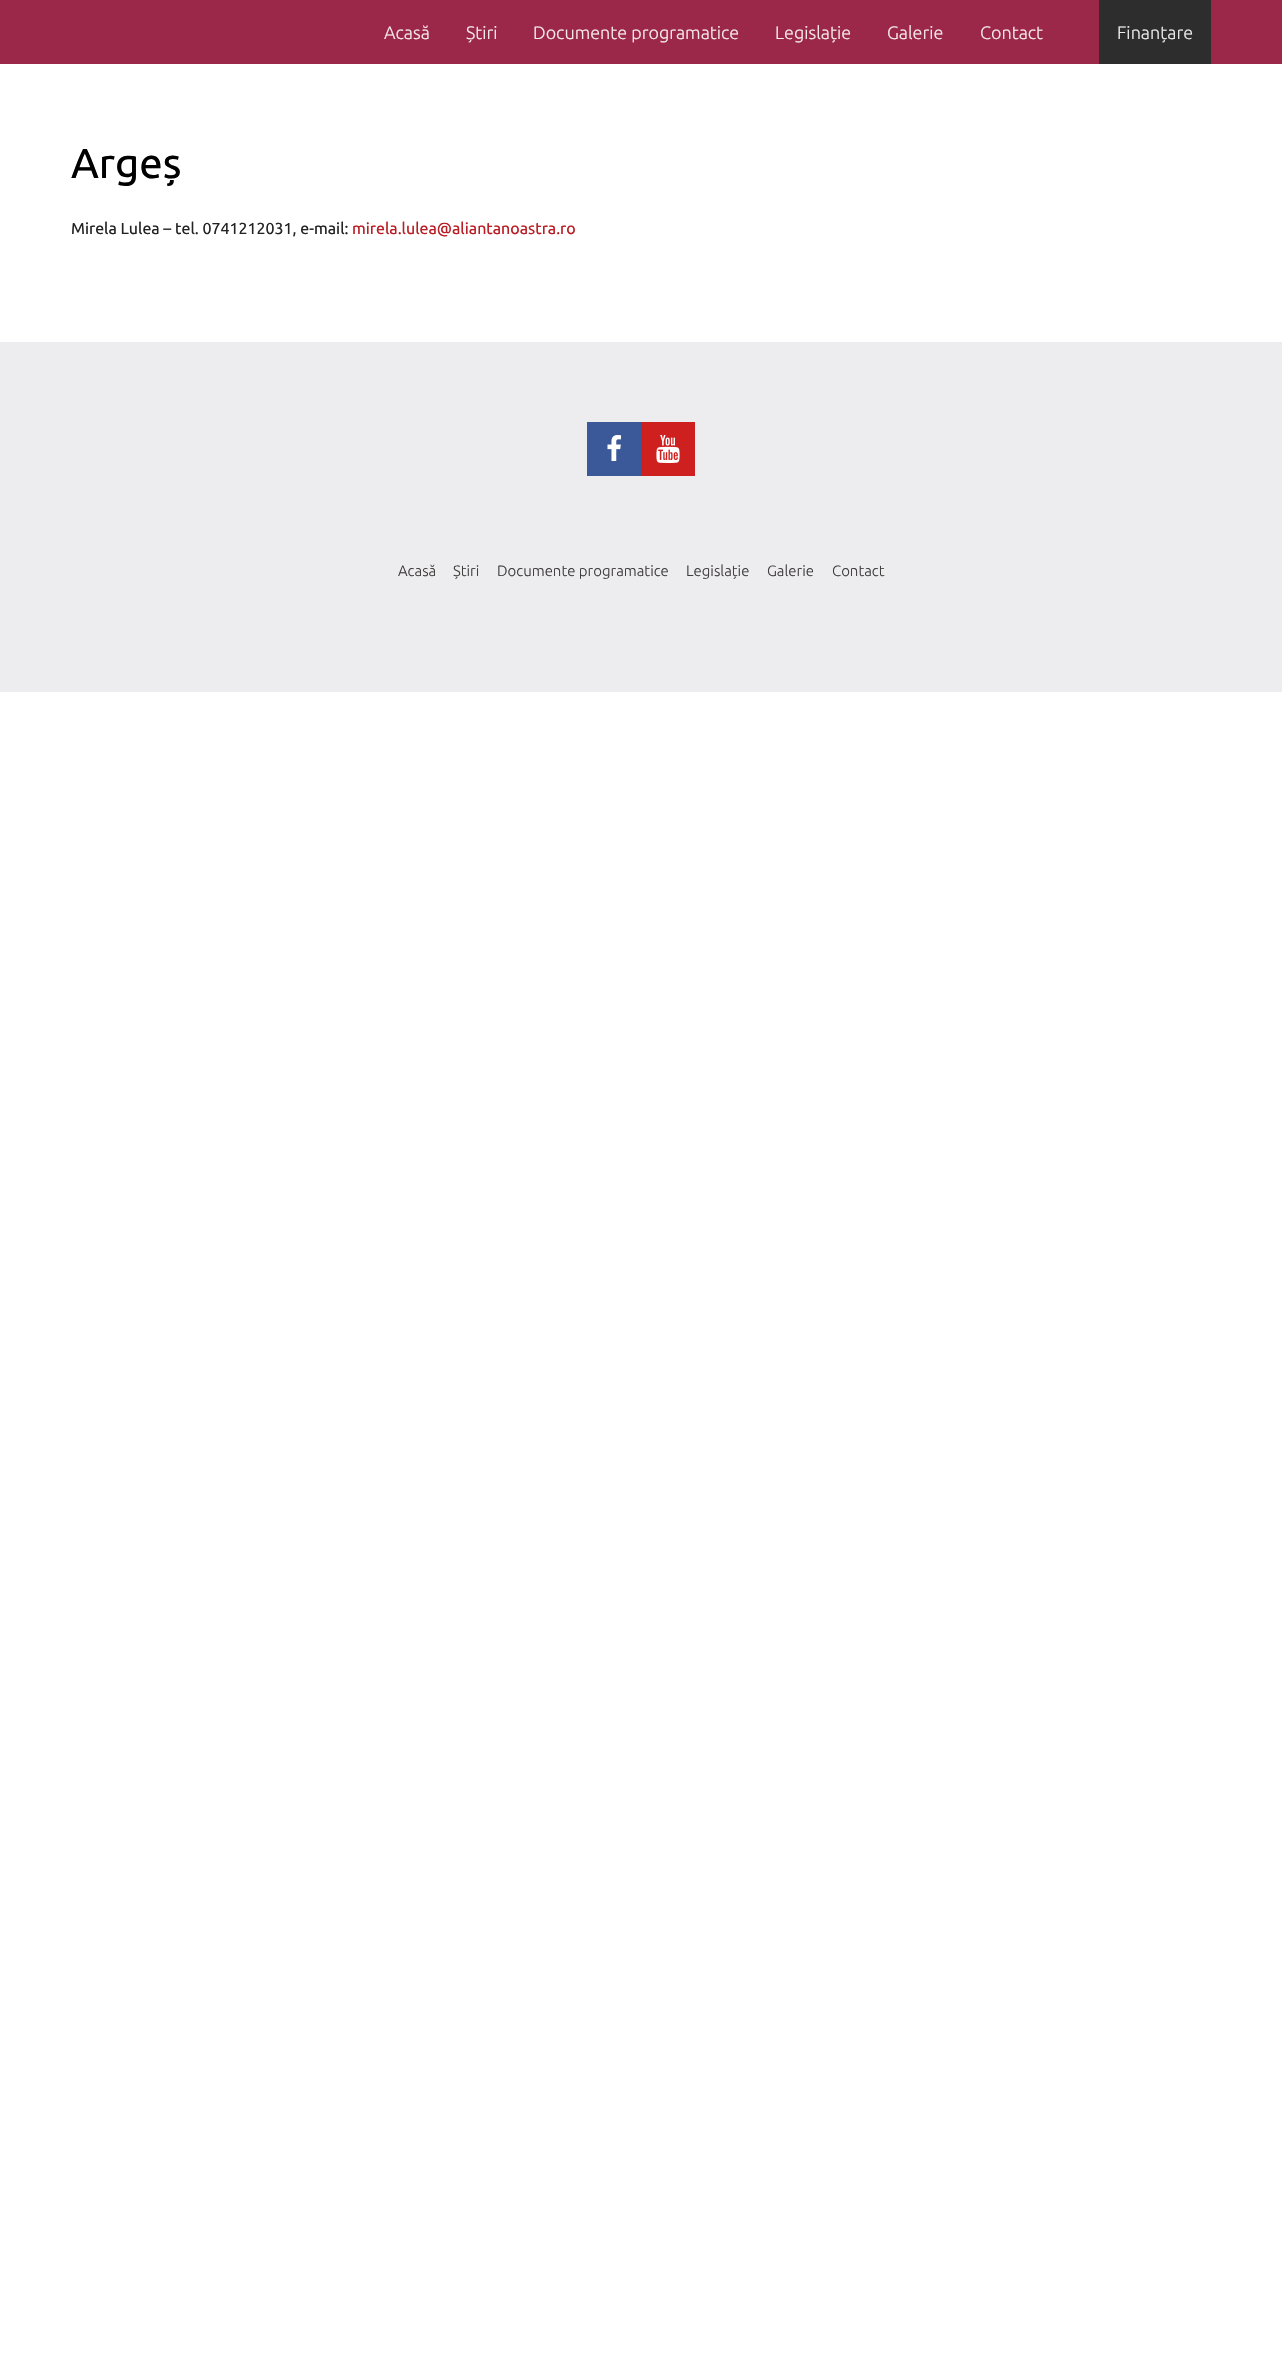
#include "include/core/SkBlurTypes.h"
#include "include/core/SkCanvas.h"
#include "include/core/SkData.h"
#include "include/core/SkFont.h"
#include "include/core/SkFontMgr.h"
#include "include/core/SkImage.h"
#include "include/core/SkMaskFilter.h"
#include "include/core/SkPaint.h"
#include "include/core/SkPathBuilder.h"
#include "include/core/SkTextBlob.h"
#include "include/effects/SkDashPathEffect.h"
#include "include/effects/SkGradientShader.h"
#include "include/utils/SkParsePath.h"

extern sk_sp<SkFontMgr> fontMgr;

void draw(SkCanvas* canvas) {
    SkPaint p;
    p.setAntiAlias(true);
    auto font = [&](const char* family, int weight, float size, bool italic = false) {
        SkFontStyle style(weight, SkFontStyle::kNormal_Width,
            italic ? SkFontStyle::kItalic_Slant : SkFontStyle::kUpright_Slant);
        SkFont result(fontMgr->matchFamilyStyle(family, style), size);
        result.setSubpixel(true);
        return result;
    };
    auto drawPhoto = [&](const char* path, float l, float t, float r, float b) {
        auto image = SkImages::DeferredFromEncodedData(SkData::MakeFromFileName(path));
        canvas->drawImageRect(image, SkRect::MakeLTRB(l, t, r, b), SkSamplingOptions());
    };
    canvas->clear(0xFFFFFFFF);
    p.setColor(0xFF9C2849);
    canvas->drawRect(SkRect::MakeLTRB(0, 0, 1282, 64), p);
    auto font1 = font("Ubuntu", 300, 18);
    p.setColor(0xFFF5EAED);
    {
        const struct { const char* s; float x, y; } items[] = {
            {"Acasă", 384, 39},
            {"Știri", 466, 39},
            {"Documente programatice", 533, 39},
            {"Legislație", 775, 39},
            {"Galerie", 887, 39},
            {"Contact", 980, 39},
        };
        for (auto [s, x, y] : items) {
            canvas->drawString(s, x, y, font1, p);
        }
    }
    p.setColor(0xFF2D2D2D);
    canvas->drawRect(SkRect::MakeLTRB(1099, 0, 1211, 64), p);
    p.setColor(0xFFEAEAEA);
    canvas->drawString("Finanțare", 1117, 39, font1, p);
    auto font2 = font("Ubuntu", 400, 42);
    p.setColor(0xFF000000);
    canvas->drawString("Argeș", 71, 178, font2, p);
    auto font3 = font("Ubuntu", 400, 16);
    p.setColor(0xFF232323);
    canvas->drawString("Mirela Lulea – tel. 0741212031, e-mail:", 71, 234, font3, p);
    p.setColor(0xFFBA1C24);
    canvas->drawString("mirela.lulea@aliantanoastra.ro", 352, 234, font3, p);
    p.setColor(0xFFEDEDEF);
    canvas->drawRect(SkRect::MakeLTRB(0, 342, 1282, 692), p);
    p.setColor(0xFF3B5998);
    canvas->drawRect(SkRect::MakeLTRB(587, 422, 641, 476), p);
    drawPhoto("media/1.png", 607, 435, 621, 461);
    p.setColor(0xFFCD201F);
    canvas->drawRect(SkRect::MakeLTRB(641, 422, 695, 476), p);
    drawPhoto("media/2.png", 656, 435, 680, 463);
    auto font4 = font("Ubuntu", 300, 15);
    p.setColor(0xFF403D3D);
    {
        const struct { const char* s; float x, y; } items[] = {
            {"Acasă", 398, 576},
            {"Știri", 453, 576},
            {"Documente programatice", 497, 576},
            {"Legislație", 686, 576},
            {"Galerie", 767, 576},
            {"Contact", 832, 576},
        };
        for (auto [s, x, y] : items) {
            canvas->drawString(s, x, y, font4, p);
        }
    }
}
